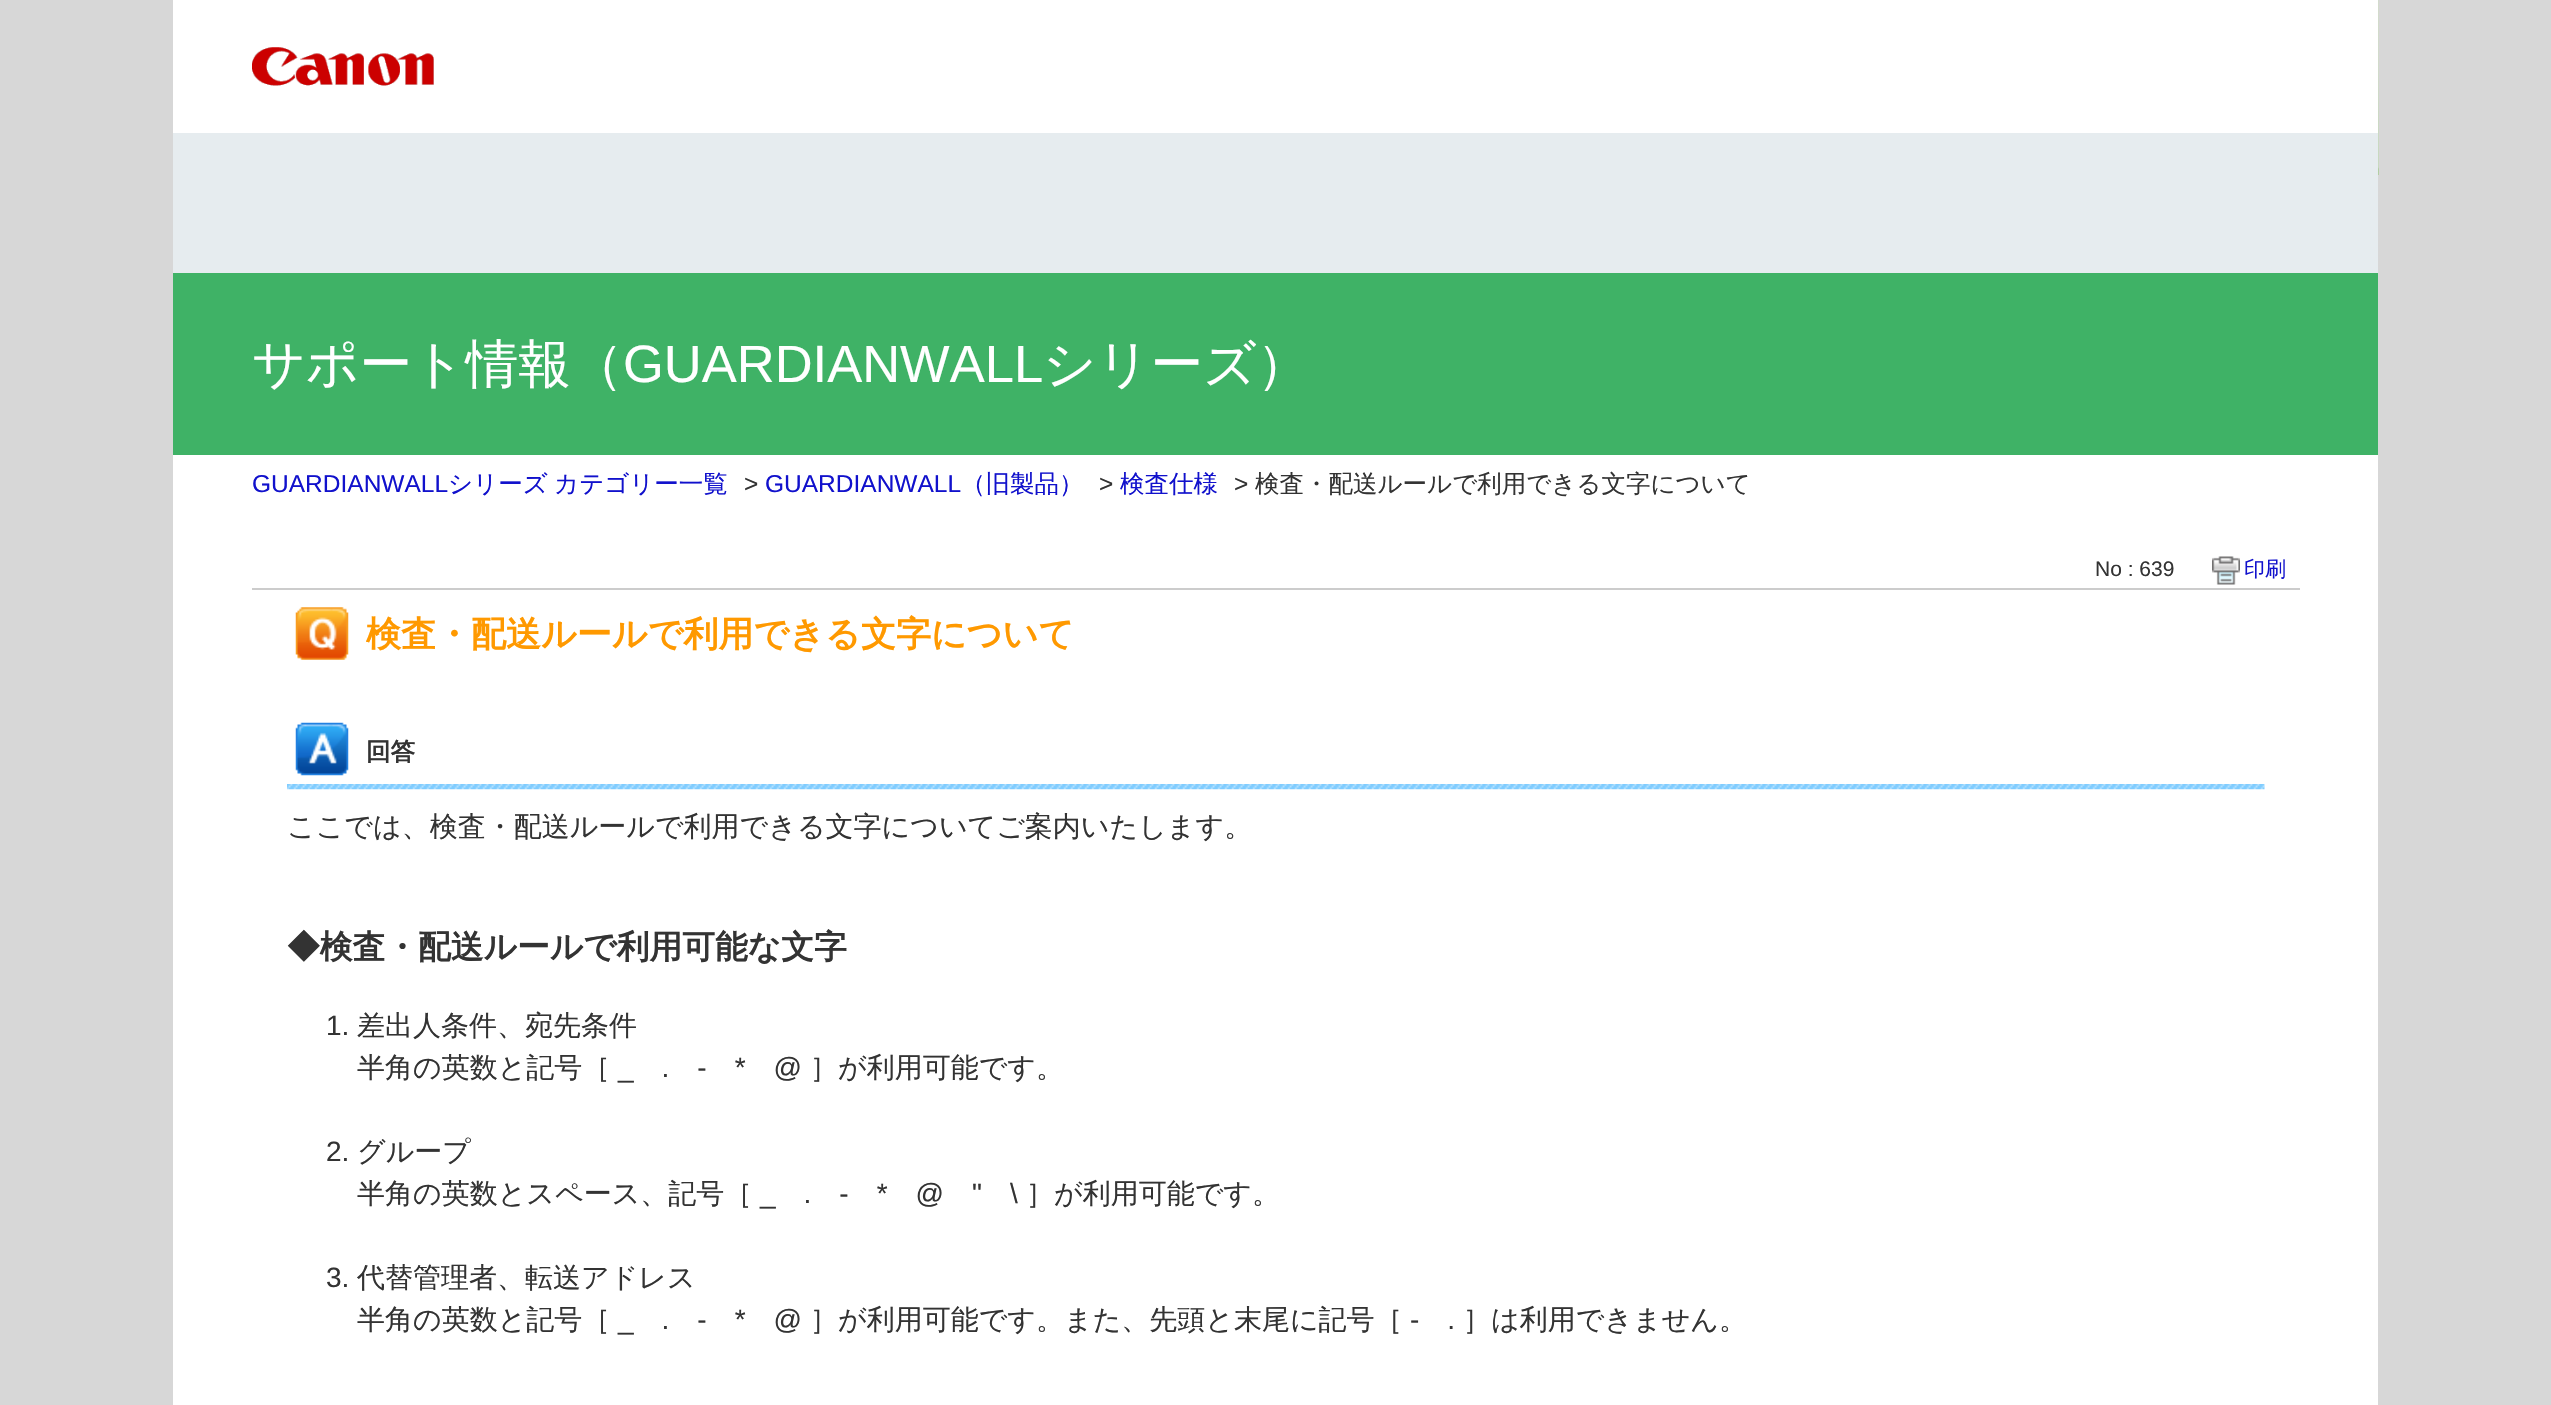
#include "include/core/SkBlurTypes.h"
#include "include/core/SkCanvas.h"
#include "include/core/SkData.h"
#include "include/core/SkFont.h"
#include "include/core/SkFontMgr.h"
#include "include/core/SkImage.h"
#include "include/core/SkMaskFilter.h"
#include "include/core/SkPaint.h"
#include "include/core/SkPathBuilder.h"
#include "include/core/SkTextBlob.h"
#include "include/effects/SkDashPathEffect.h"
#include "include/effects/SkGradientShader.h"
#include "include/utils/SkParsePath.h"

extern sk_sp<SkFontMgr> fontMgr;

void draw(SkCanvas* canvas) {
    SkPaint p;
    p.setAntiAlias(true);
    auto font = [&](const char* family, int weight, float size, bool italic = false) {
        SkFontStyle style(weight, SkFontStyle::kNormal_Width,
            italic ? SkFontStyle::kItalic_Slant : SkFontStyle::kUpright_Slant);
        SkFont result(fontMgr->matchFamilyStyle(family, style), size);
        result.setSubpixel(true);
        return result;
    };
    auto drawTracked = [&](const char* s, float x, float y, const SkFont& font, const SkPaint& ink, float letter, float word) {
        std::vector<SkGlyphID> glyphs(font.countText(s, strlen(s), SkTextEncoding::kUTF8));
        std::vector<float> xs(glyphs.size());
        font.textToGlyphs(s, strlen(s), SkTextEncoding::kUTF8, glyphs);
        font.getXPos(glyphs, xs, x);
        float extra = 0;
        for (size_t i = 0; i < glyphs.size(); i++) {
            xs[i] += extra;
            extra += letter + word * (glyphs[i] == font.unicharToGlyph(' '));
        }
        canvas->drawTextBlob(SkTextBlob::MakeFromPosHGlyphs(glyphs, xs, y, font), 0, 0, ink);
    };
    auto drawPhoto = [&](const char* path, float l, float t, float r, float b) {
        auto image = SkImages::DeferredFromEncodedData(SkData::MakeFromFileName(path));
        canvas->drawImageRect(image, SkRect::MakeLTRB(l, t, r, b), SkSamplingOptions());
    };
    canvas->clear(0xFFD7D7D7);
    p.setColor(0xFFFFFFFF);
    canvas->drawRect(SkRect::MakeLTRB(173, 455, 2378, 1405), p);
    drawPhoto("media/1.png", 2378, 0, 2379, 175);
    canvas->drawRect(SkRect::MakeLTRB(173, 0, 2378, 133), p);
    drawPhoto("media/2.png", 252, 47, 434, 86);
    p.setColor(0xFFE6ECEF);
    canvas->drawRect(SkRect::MakeLTRB(173, 133, 2378, 273), p);
    p.setColor(0xFF3FB266);
    canvas->drawRect(SkRect::MakeLTRB(173, 273, 2378, 455), p);
    auto font1 = font("WenQuanYi Zen Hei", 500, 52.5f);
    p.setColor(0xFFFFFFFF);
    canvas->drawString("サポート情報（", 252, 382, font1, p);
    auto font2 = font("Liberation Sans", 400, 52.5f);
    canvas->drawString("GUARDIANWALL", 623, 382, font2, p);
    canvas->drawString("シリーズ）", 1043, 382, font1, p);
    auto font3 = font("Liberation Sans", 400, 24.5f);
    p.setColor(0xFF1111CC);
    canvas->drawString("GUARDIANWALL", 252, 492, font3, p);
    auto font4 = font("WenQuanYi Zen Hei", 500, 24.5f);
    drawTracked("シリーズ カテゴリー一覧", 448, 492, font4, p, 0, -1);
    p.setColor(0xFF333333);
    canvas->drawString(">", 744, 492, font3, p);
    p.setColor(0xFF1111CC);
    canvas->drawString("GUARDIANWALL", 765, 492, font3, p);
    canvas->drawString("（旧製品）", 961, 492, font4, p);
    p.setColor(0xFF333333);
    canvas->drawString(">", 1099, 492, font3, p);
    p.setColor(0xFF1111CC);
    canvas->drawString("検査仕様", 1120, 492, font4, p);
    p.setColor(0xFF333333);
    canvas->drawString(">", 1234, 492, font3, p);
    canvas->drawString("検査・配送ルールで利用できる文字について", 1255, 492, font4, p);
    p.setColor(0xFFCCCCCC);
    canvas->drawRect(SkRect::MakeLTRB(252, 588, 2300, 590), p);
    auto font5 = font("Liberation Sans", 400, 21);
    p.setColor(0xFF333333);
    canvas->drawString("No : 639", 2095, 576, font5, p);
    drawPhoto("media/3.png", 2212, 556, 2240, 585);
    auto font6 = font("WenQuanYi Zen Hei", 500, 21);
    p.setColor(0xFF1111CC);
    canvas->drawString("印刷", 2244, 576, font6, p);
    drawPhoto("media/4.png", 295, 607, 349, 660);
    auto font7 = font("WenQuanYi Zen Hei", 700, 35);
    p.setColor(0xFFFF9900);
    canvas->drawString("検査・配送ルールで利用できる文字について", 366, 646, font7, p);
    drawPhoto("media/5.png", 287, 784, 2265, 790);
    drawPhoto("media/6.png", 295, 722, 349, 776);
    auto font8 = font("WenQuanYi Zen Hei", 700, 24.5f);
    p.setColor(0xFF333333);
    canvas->drawString("回答", 366, 760, font8, p);
    auto font9 = font("WenQuanYi Zen Hei", 500, 28);
    canvas->drawString("ここでは、検査・配送ルールで利用できる文字についてご案内いたします。", 287, 836, font9, p);
    auto font10 = font("WenQuanYi Zen Hei", 700, 32.75f);
    canvas->drawString("◆検査・配送ルールで利用可能な文字", 287, 958, font10, p);
    auto font11 = font("Liberation Sans", 400, 28);
    canvas->drawString("1.", 326, 1035, font11, p);
    canvas->drawString("差出人条件、宛先条件", 357, 1035, font9, p);
    canvas->drawString("半角の英数と記号［", 357, 1077, font9, p);
    canvas->drawString("_  .  -  *  @", 618, 1077, font11, p);
    canvas->drawString("］が利用可能です。", 810, 1077, font9, p);
    canvas->drawString("2.", 326, 1161, font11, p);
    canvas->drawString("グループ", 357, 1161, font9, p);
    canvas->drawString("半角の英数とスペース、記号［", 357, 1203, font9, p);
    canvas->drawString("_  .  -  *  @  \"  \\", 760, 1203, font11, p);
    canvas->drawString("］が利用可能です。", 1026, 1203, font9, p);
    canvas->drawString("3.", 326, 1287, font11, p);
    canvas->drawString("代替管理者、転送アドレス", 357, 1287, font9, p);
    canvas->drawString("半角の英数と記号［", 357, 1329, font9, p);
    canvas->drawString("_  .  -  *  @", 618, 1329, font11, p);
    canvas->drawString("］が利用可能です。また、先頭と末尾に記号［", 810, 1329, font9, p);
    canvas->drawString("-  .", 1410, 1329, font11, p);
    canvas->drawString("］は利用できません。", 1463, 1329, font9, p);
}
